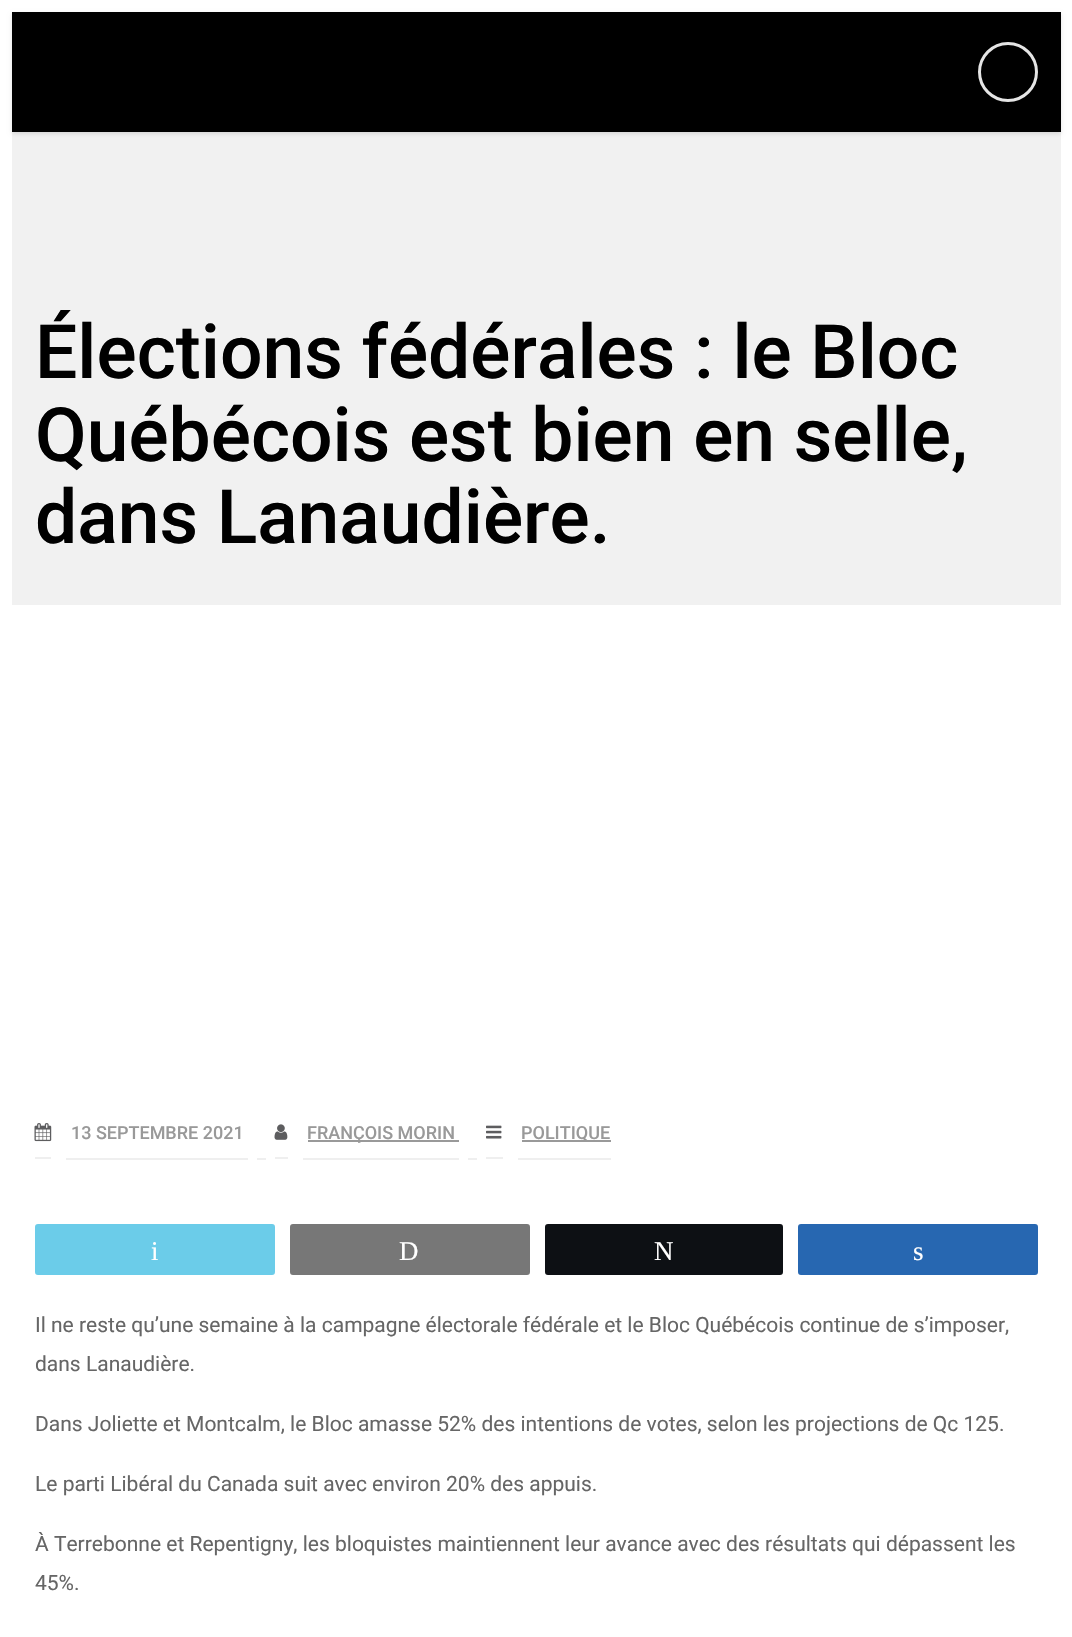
#include "include/core/SkBlurTypes.h"
#include "include/core/SkCanvas.h"
#include "include/core/SkData.h"
#include "include/core/SkFont.h"
#include "include/core/SkFontMgr.h"
#include "include/core/SkImage.h"
#include "include/core/SkMaskFilter.h"
#include "include/core/SkPaint.h"
#include "include/core/SkPathBuilder.h"
#include "include/core/SkTextBlob.h"
#include "include/effects/SkDashPathEffect.h"
#include "include/effects/SkGradientShader.h"
#include "include/utils/SkParsePath.h"

extern sk_sp<SkFontMgr> fontMgr;

void draw(SkCanvas* canvas) {
    SkPaint p;
    p.setAntiAlias(true);
    auto font = [&](const char* family, int weight, float size, bool italic = false) {
        SkFontStyle style(weight, SkFontStyle::kNormal_Width,
            italic ? SkFontStyle::kItalic_Slant : SkFontStyle::kUpright_Slant);
        SkFont result(fontMgr->matchFamilyStyle(family, style), size);
        result.setSubpixel(true);
        return result;
    };
    auto drawPhoto = [&](const char* path, float l, float t, float r, float b) {
        auto image = SkImages::DeferredFromEncodedData(SkData::MakeFromFileName(path));
        canvas->drawImageRect(image, SkRect::MakeLTRB(l, t, r, b), SkSamplingOptions());
    };
    canvas->clear(0xFFFFFFFF);
    p.setColor(0xFFF1F1F1);
    canvas->drawRect(SkRect::MakeLTRB(12, 132, 1061, 605), p);
    p.setColor(0x1C000000);
    p.setMaskFilter(SkMaskFilter::MakeBlur(kNormal_SkBlurStyle, 2));
    canvas->drawRect(SkRect::MakeLTRB(12, 14, 1061, 134), p);
    p.setMaskFilter(nullptr);
    p.setColor(0xFF000000);
    canvas->drawRect(SkRect::MakeLTRB(12, 12, 1061, 132), p);
    p.setStyle(SkPaint::kStroke_Style);
    p.setStrokeWidth(3);
    p.setColor(0xFFE5E5E5);
    canvas->drawCircle(1008, 72, 28.5f, p);
    auto font1 = font("Roboto", 500, 75);
    p.setStyle(SkPaint::kFill_Style);
    p.setColor(0xFF000000);
    {
        const struct { const char* s; float x, y; } items[] = {
            {"Élections fédérales : le Bloc", 35, 378},
            {"Québécois est bien en selle,", 35, 461},
            {"dans Lanaudière.", 35, 543},
        };
        for (auto [s, x, y] : items) {
            canvas->drawString(s, x, y, font1, p);
        }
    }
    {
        const struct { float l, t, r, b; SkColor color; } items[] = {
            {35, 1157, 51, 1159, 0xFFEFEFEF},
            {66, 1158, 248, 1160, 0xFFEFEFEF},
            {257, 1158, 266, 1160, 0xFFEFEFEF},
        };
        for (auto [l, t, r, b, color] : items) {
            p.setColor(color);
            canvas->drawRect(SkRect::MakeLTRB(l, t, r, b), p);
        }
    }
    drawPhoto("media/1.png", 34, 1123, 52, 1142);
    auto font2 = font("Roboto", 500, 18);
    p.setColor(0xFF999999);
    canvas->drawString("13 SEPTEMBRE 2021", 71, 1139, font2, p);
    {
        const struct { float l, t, r, b; SkColor color; } items[] = {
            {275, 1157, 288, 1159, 0xFFEFEFEF},
            {303, 1158, 459, 1160, 0xFFEFEFEF},
            {468, 1158, 477, 1160, 0xFFEFEFEF},
        };
        for (auto [l, t, r, b, color] : items) {
            p.setColor(color);
            canvas->drawRect(SkRect::MakeLTRB(l, t, r, b), p);
        }
    }
    drawPhoto("media/2.png", 274, 1124, 288, 1140);
    p.setColor(0xFF999999);
    canvas->drawRect(SkRect::MakeLTRB(308, 1140, 459, 1142), p);
    canvas->drawString("FRANÇOIS MORIN", 307, 1139, font2, p);
    p.setColor(0xFFEFEFEF);
    canvas->drawRect(SkRect::MakeLTRB(486, 1157, 503, 1159), p);
    canvas->drawRect(SkRect::MakeLTRB(518, 1158, 611, 1160), p);
    drawPhoto("media/3.png", 486, 1125, 502, 1139);
    p.setColor(0xFF999999);
    canvas->drawRect(SkRect::MakeLTRB(522, 1140, 611, 1142), p);
    canvas->drawString("POLITIQUE", 521, 1139, font2, p);
    p.setColor(0xFF6BCCE9);
    canvas->drawRoundRect(SkRect::MakeLTRB(36, 1225, 274, 1274), 2, 2, p);
    p.setStyle(SkPaint::kStroke_Style);
    p.setStrokeWidth(2);
    canvas->drawRoundRect(SkRect::MakeLTRB(36, 1225, 274, 1274), 2, 2, p);
    auto font3 = font("Liberation Serif", 400, 27);
    p.setStyle(SkPaint::kFill_Style);
    p.setColor(0xFFFFFFFF);
    canvas->drawString("i", 151, 1260, font3, p);
    p.setColor(0xFF777777);
    canvas->drawRoundRect(SkRect::MakeLTRB(291, 1225, 529, 1274), 2, 2, p);
    p.setStyle(SkPaint::kStroke_Style);
    canvas->drawRoundRect(SkRect::MakeLTRB(291, 1225, 529, 1274), 2, 2, p);
    p.setStyle(SkPaint::kFill_Style);
    p.setColor(0xFFFFFFFF);
    canvas->drawString("D", 399, 1260, font3, p);
    p.setColor(0xFF0D1014);
    canvas->drawRoundRect(SkRect::MakeLTRB(546, 1225, 782, 1274), 2, 2, p);
    p.setStyle(SkPaint::kStroke_Style);
    canvas->drawRoundRect(SkRect::MakeLTRB(546, 1225, 782, 1274), 2, 2, p);
    p.setStyle(SkPaint::kFill_Style);
    p.setColor(0xFFFFFFFF);
    canvas->drawString("N", 654, 1260, font3, p);
    p.setColor(0xFF2767B1);
    canvas->drawRoundRect(SkRect::MakeLTRB(799, 1225, 1037, 1274), 2, 2, p);
    p.setStyle(SkPaint::kStroke_Style);
    canvas->drawRoundRect(SkRect::MakeLTRB(799, 1225, 1037, 1274), 2, 2, p);
    p.setStyle(SkPaint::kFill_Style);
    p.setColor(0xFFFFFFFF);
    canvas->drawString("s", 913, 1260, font3, p);
    auto font4 = font("Roboto", 400, 21);
    p.setColor(0xFF666666);
    {
        const struct { const char* s; float x, y; } items[] = {
            {"Il ne reste qu’une semaine à la campagne électorale fédérale et le Bloc Québécois continue de s’imposer,", 35, 1332},
            {"dans Lanaudière.", 35, 1371},
            {"Dans Joliette et Montcalm, le Bloc amasse 52% des intentions de votes, selon les projections de Qc 125.", 35, 1431},
            {"Le parti Libéral du Canada suit avec environ 20% des appuis.", 35, 1491},
            {"À Terrebonne et Repentigny, les bloquistes maintiennent leur avance avec des résultats qui dépassent les", 35, 1551},
            {"45%.", 35, 1590},
        };
        for (auto [s, x, y] : items) {
            canvas->drawString(s, x, y, font4, p);
        }
    }
}
